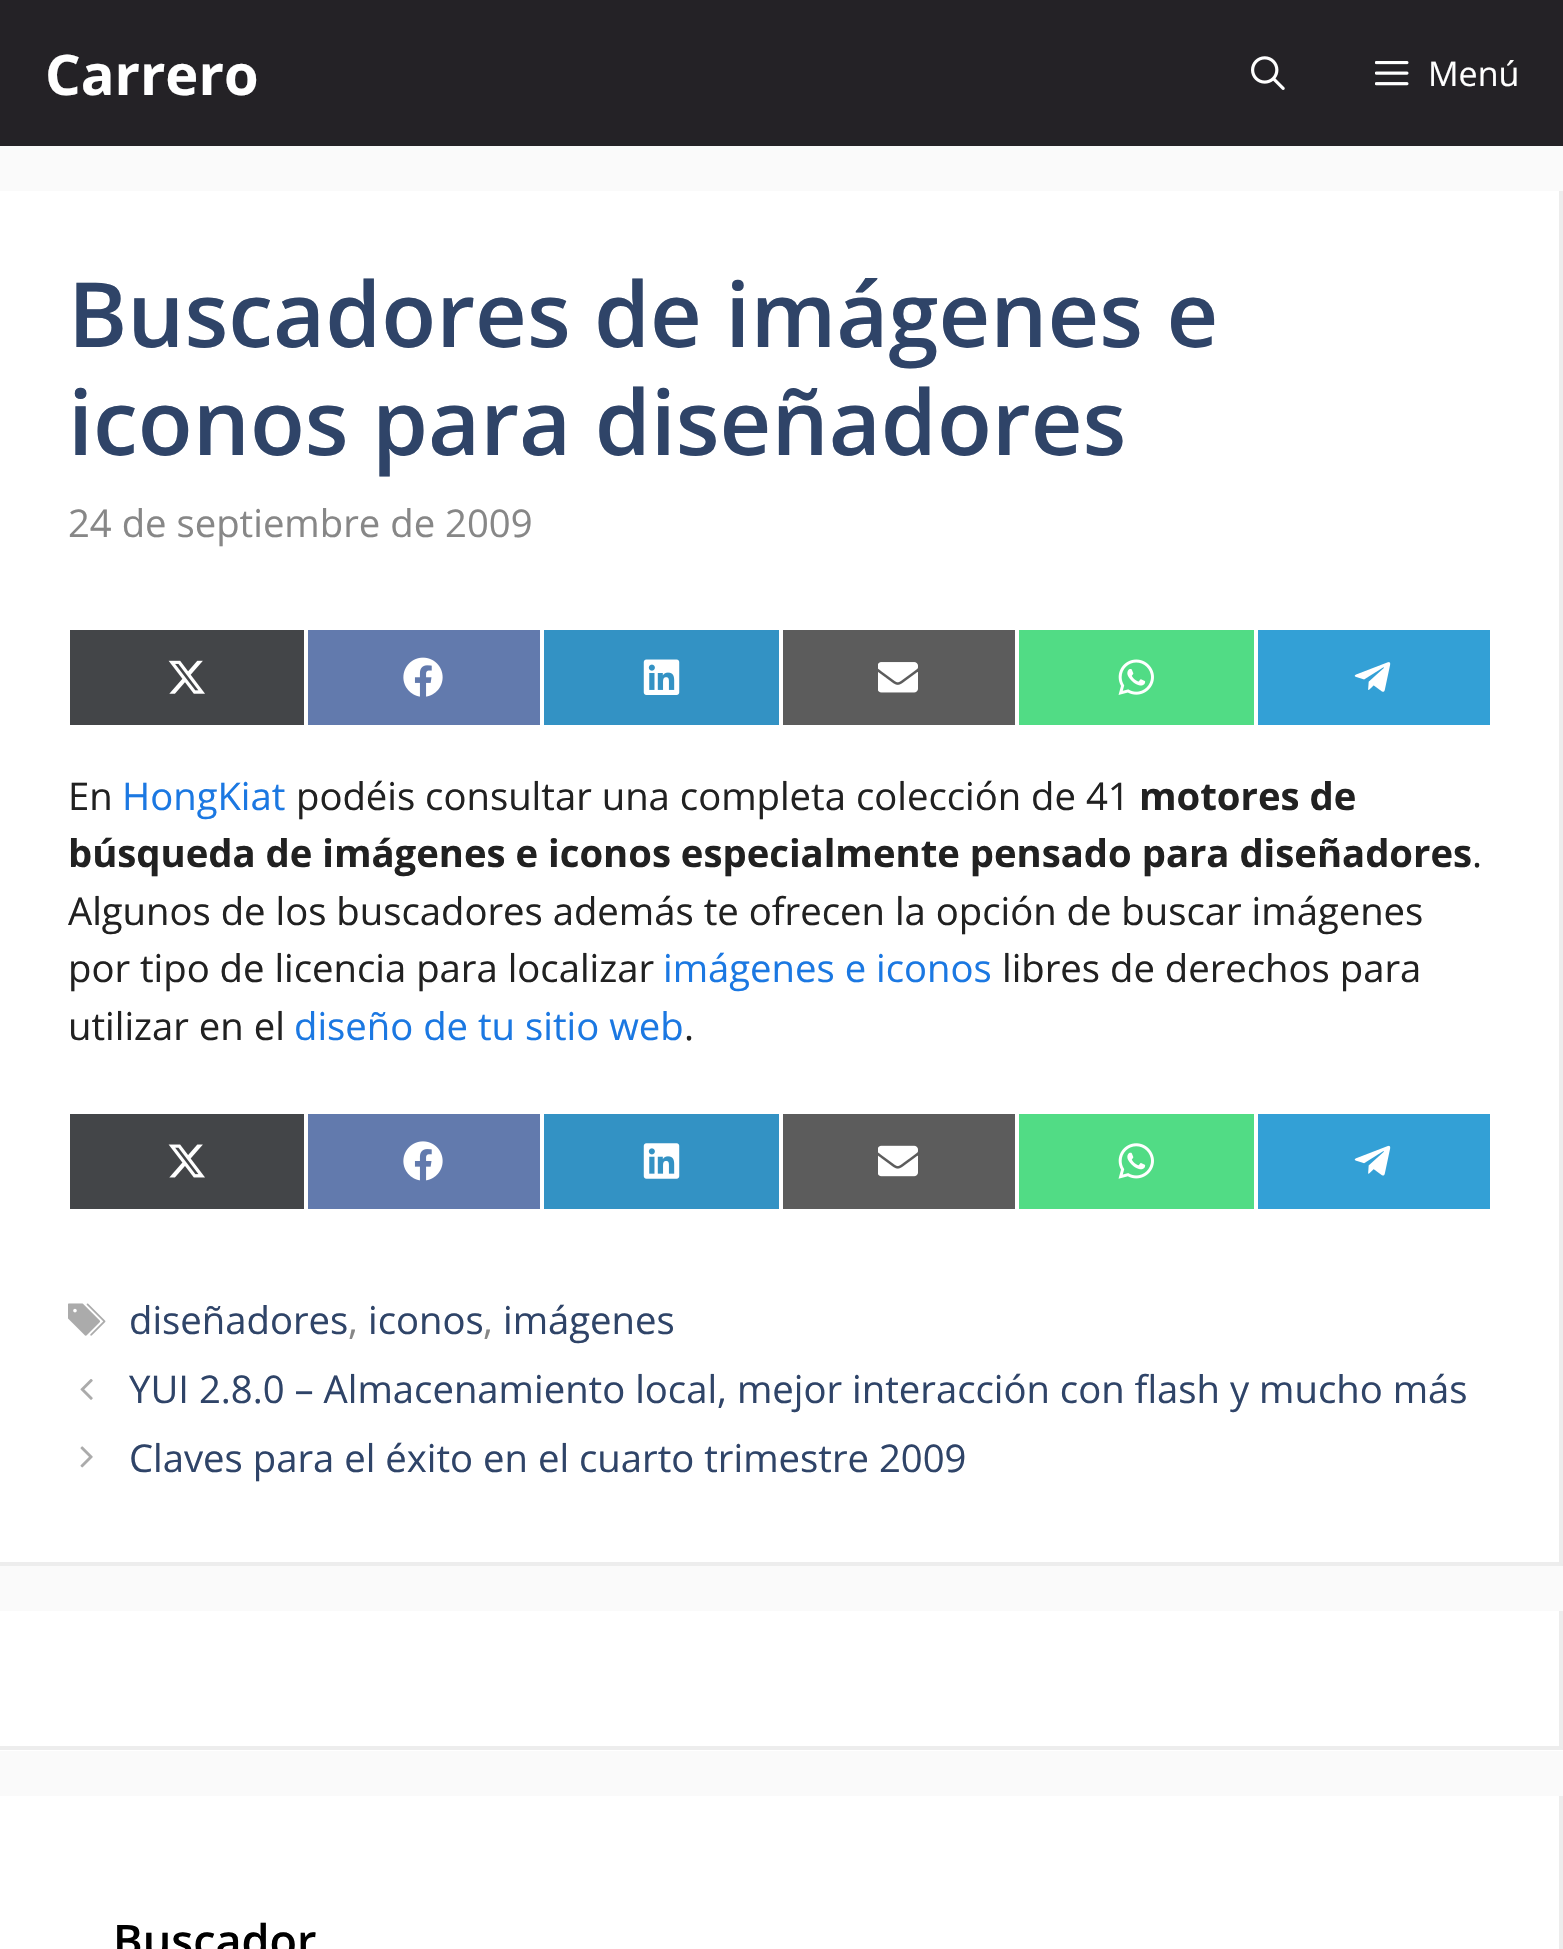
#include "include/core/SkBlurTypes.h"
#include "include/core/SkCanvas.h"
#include "include/core/SkData.h"
#include "include/core/SkFont.h"
#include "include/core/SkFontMgr.h"
#include "include/core/SkImage.h"
#include "include/core/SkMaskFilter.h"
#include "include/core/SkPaint.h"
#include "include/core/SkPathBuilder.h"
#include "include/core/SkTextBlob.h"
#include "include/effects/SkDashPathEffect.h"
#include "include/effects/SkGradientShader.h"
#include "include/utils/SkParsePath.h"

extern sk_sp<SkFontMgr> fontMgr;

void draw(SkCanvas* canvas) {
    SkPaint p;
    p.setAntiAlias(true);
    auto font = [&](const char* family, int weight, float size, bool italic = false) {
        SkFontStyle style(weight, SkFontStyle::kNormal_Width,
            italic ? SkFontStyle::kItalic_Slant : SkFontStyle::kUpright_Slant);
        SkFont result(fontMgr->matchFamilyStyle(family, style), size);
        result.setSubpixel(true);
        return result;
    };
    auto drawPhoto = [&](const char* path, float l, float t, float r, float b) {
        auto image = SkImages::DeferredFromEncodedData(SkData::MakeFromFileName(path));
        canvas->drawImageRect(image, SkRect::MakeLTRB(l, t, r, b), SkSamplingOptions());
    };
    canvas->clear(0xFFFAFAFA);
    p.setColor(0xFF242226);
    canvas->drawRect(SkRect::MakeLTRB(0, 0, 1563, 146), p);
    auto font1 = font("Open Sans", 700, 56);
    p.setColor(0xFFFFFFFF);
    canvas->drawString("Carrero", 45, 95, font1, p);
    drawPhoto("media/1.png", 1251, 56, 1285, 90);
    drawPhoto("media/2.png", 1375, 61, 1409, 86);
    auto font2 = font("Open Sans", 400, 34);
    canvas->drawString("Menú", 1428, 86, font2, p);
    canvas->drawRect(SkRect::MakeLTRB(0, 191, 1563, 1566), p);
    p.setColor(0xFFEDEDED);
    canvas->drawPath(SkPathBuilder().moveTo(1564, 191).lineTo(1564, 1566).lineTo(1559, 1562).lineTo(1559, 191).close().detach(), p);
    p.setColor(0x12000000);
    canvas->drawPath(SkPathBuilder().moveTo(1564, 1566).lineTo(0, 1566).lineTo(0, 1562).lineTo(1559, 1562).close().detach(), p);
    auto font3 = font("Open Sans", 600, 90);
    p.setColor(0xFF2F4468);
    canvas->drawString("Buscadores de imágenes e", 68, 347, font3, p);
    canvas->drawString("iconos para diseñadores", 68, 455, font3, p);
    auto font4 = font("Open Sans", 400, 38.25f);
    p.setColor(0xFF878787);
    canvas->drawString("24 de septiembre de 2009", 68, 537, font4, p);
    p.setColor(0xFF434548);
    canvas->drawRect(SkRect::MakeLTRB(70, 630, 304, 725), p);
    drawPhoto("media/3.png", 168, 660, 205, 694);
    p.setColor(0xFF627AAD);
    canvas->drawRect(SkRect::MakeLTRB(308, 630, 540, 725), p);
    drawPhoto("media/4.png", 403, 657, 443, 697);
    p.setColor(0xFF3392C4);
    canvas->drawRect(SkRect::MakeLTRB(544, 630, 779, 725), p);
    drawPhoto("media/5.png", 643, 659, 680, 695);
    p.setColor(0xFF5C5C5C);
    canvas->drawRect(SkRect::MakeLTRB(783, 630, 1015, 725), p);
    drawPhoto("media/6.png", 878, 662, 918, 693);
    p.setColor(0xFF51DC85);
    canvas->drawRect(SkRect::MakeLTRB(1019, 630, 1254, 725), p);
    drawPhoto("media/7.png", 1118, 659, 1154, 695);
    p.setColor(0xFF33A0D6);
    canvas->drawRect(SkRect::MakeLTRB(1258, 630, 1490, 725), p);
    drawPhoto("media/8.png", 1354, 662, 1391, 692);
    p.setColor(0xFF212121);
    canvas->drawString("En", 68, 810, font4, p);
    p.setColor(0xFF1B78E2);
    canvas->drawString("HongKiat", 122, 810, font4, p);
    p.setColor(0xFF212121);
    canvas->drawString("podéis consultar una completa colección de 41", 296, 810, font4, p);
    auto font5 = font("Open Sans", 700, 38.25f);
    canvas->drawString("motores de", 1139, 810, font5, p);
    canvas->drawString("búsqueda de imágenes e iconos especialmente pensado para diseñadores", 68, 867, font5, p);
    {
        const struct { const char* s; float x, y; } items[] = {
            {".", 1472, 867},
            {"Algunos de los buscadores además te ofrecen la opción de buscar imágenes", 68, 925},
            {"por tipo de licencia para localizar", 68, 982},
        };
        for (auto [s, x, y] : items) {
            canvas->drawString(s, x, y, font4, p);
        }
    }
    p.setColor(0xFF1B78E2);
    canvas->drawString("imágenes e iconos", 663, 982, font4, p);
    p.setColor(0xFF212121);
    canvas->drawString("libres de derechos para", 1002, 982, font4, p);
    canvas->drawString("utilizar en el", 68, 1040, font4, p);
    p.setColor(0xFF1B78E2);
    canvas->drawString("diseño de tu sitio web", 294, 1040, font4, p);
    p.setColor(0xFF212121);
    canvas->drawString(".", 684, 1040, font4, p);
    p.setColor(0xFF434548);
    canvas->drawRect(SkRect::MakeLTRB(70, 1114, 304, 1209), p);
    drawPhoto("media/9.png", 168, 1144, 205, 1178);
    p.setColor(0xFF627AAD);
    canvas->drawRect(SkRect::MakeLTRB(308, 1114, 540, 1209), p);
    drawPhoto("media/10.png", 403, 1141, 443, 1181);
    p.setColor(0xFF3392C4);
    canvas->drawRect(SkRect::MakeLTRB(544, 1114, 779, 1209), p);
    drawPhoto("media/11.png", 643, 1143, 680, 1179);
    p.setColor(0xFF5C5C5C);
    canvas->drawRect(SkRect::MakeLTRB(783, 1114, 1015, 1209), p);
    drawPhoto("media/12.png", 878, 1145, 918, 1177);
    p.setColor(0xFF51DC85);
    canvas->drawRect(SkRect::MakeLTRB(1019, 1114, 1254, 1209), p);
    drawPhoto("media/13.png", 1118, 1143, 1154, 1179);
    p.setColor(0xFF33A0D6);
    canvas->drawRect(SkRect::MakeLTRB(1258, 1114, 1490, 1209), p);
    drawPhoto("media/14.png", 1354, 1145, 1391, 1176);
    drawPhoto("media/15.png", 68, 1303, 106, 1336);
    p.setColor(0xFF2F4468);
    canvas->drawString("diseñadores", 129, 1334, font4, p);
    p.setColor(0xFF878787);
    canvas->drawString(",", 348, 1334, font4, p);
    p.setColor(0xFF2F4468);
    canvas->drawString("iconos", 368, 1334, font4, p);
    p.setColor(0xFF878787);
    canvas->drawString(",", 483, 1334, font4, p);
    p.setColor(0xFF2F4468);
    canvas->drawString("imágenes", 503, 1334, font4, p);
    drawPhoto("media/16.png", 80, 1379, 93, 1400);
    canvas->drawString("YUI 2.8.0 – Almacenamiento local, mejor interacción con flash y mucho más", 129, 1403, font4, p);
    drawPhoto("media/17.png", 80, 1446, 93, 1468);
    canvas->drawString("Claves para el éxito en el cuarto trimestre 2009", 129, 1472, font4, p);
    p.setColor(0xFFFFFFFF);
    canvas->drawRect(SkRect::MakeLTRB(0, 1611, 1563, 1751), p);
    p.setColor(0xFFEDEDED);
    canvas->drawPath(SkPathBuilder().moveTo(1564, 1611).lineTo(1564, 1750).lineTo(1559, 1746).lineTo(1559, 1611).close().detach(), p);
    p.setColor(0x12000000);
    canvas->drawPath(SkPathBuilder().moveTo(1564, 1750).lineTo(0, 1750).lineTo(0, 1746).lineTo(1559, 1746).close().detach(), p);
    p.setColor(0xFFFFFFFF);
    canvas->drawRect(SkRect::MakeLTRB(0, 1796, 1559, 1949), p);
    p.setColor(0xFFEDEDED);
    canvas->drawPath(SkPathBuilder().moveTo(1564, 1796).lineTo(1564, 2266).lineTo(1559, 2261).lineTo(1559, 1796).close().detach(), p);
    auto font6 = font("Open Sans", 600, 45);
    p.setColor(0xFF000000);
    canvas->drawString("Buscador", 113, 1957, font6, p);
}
